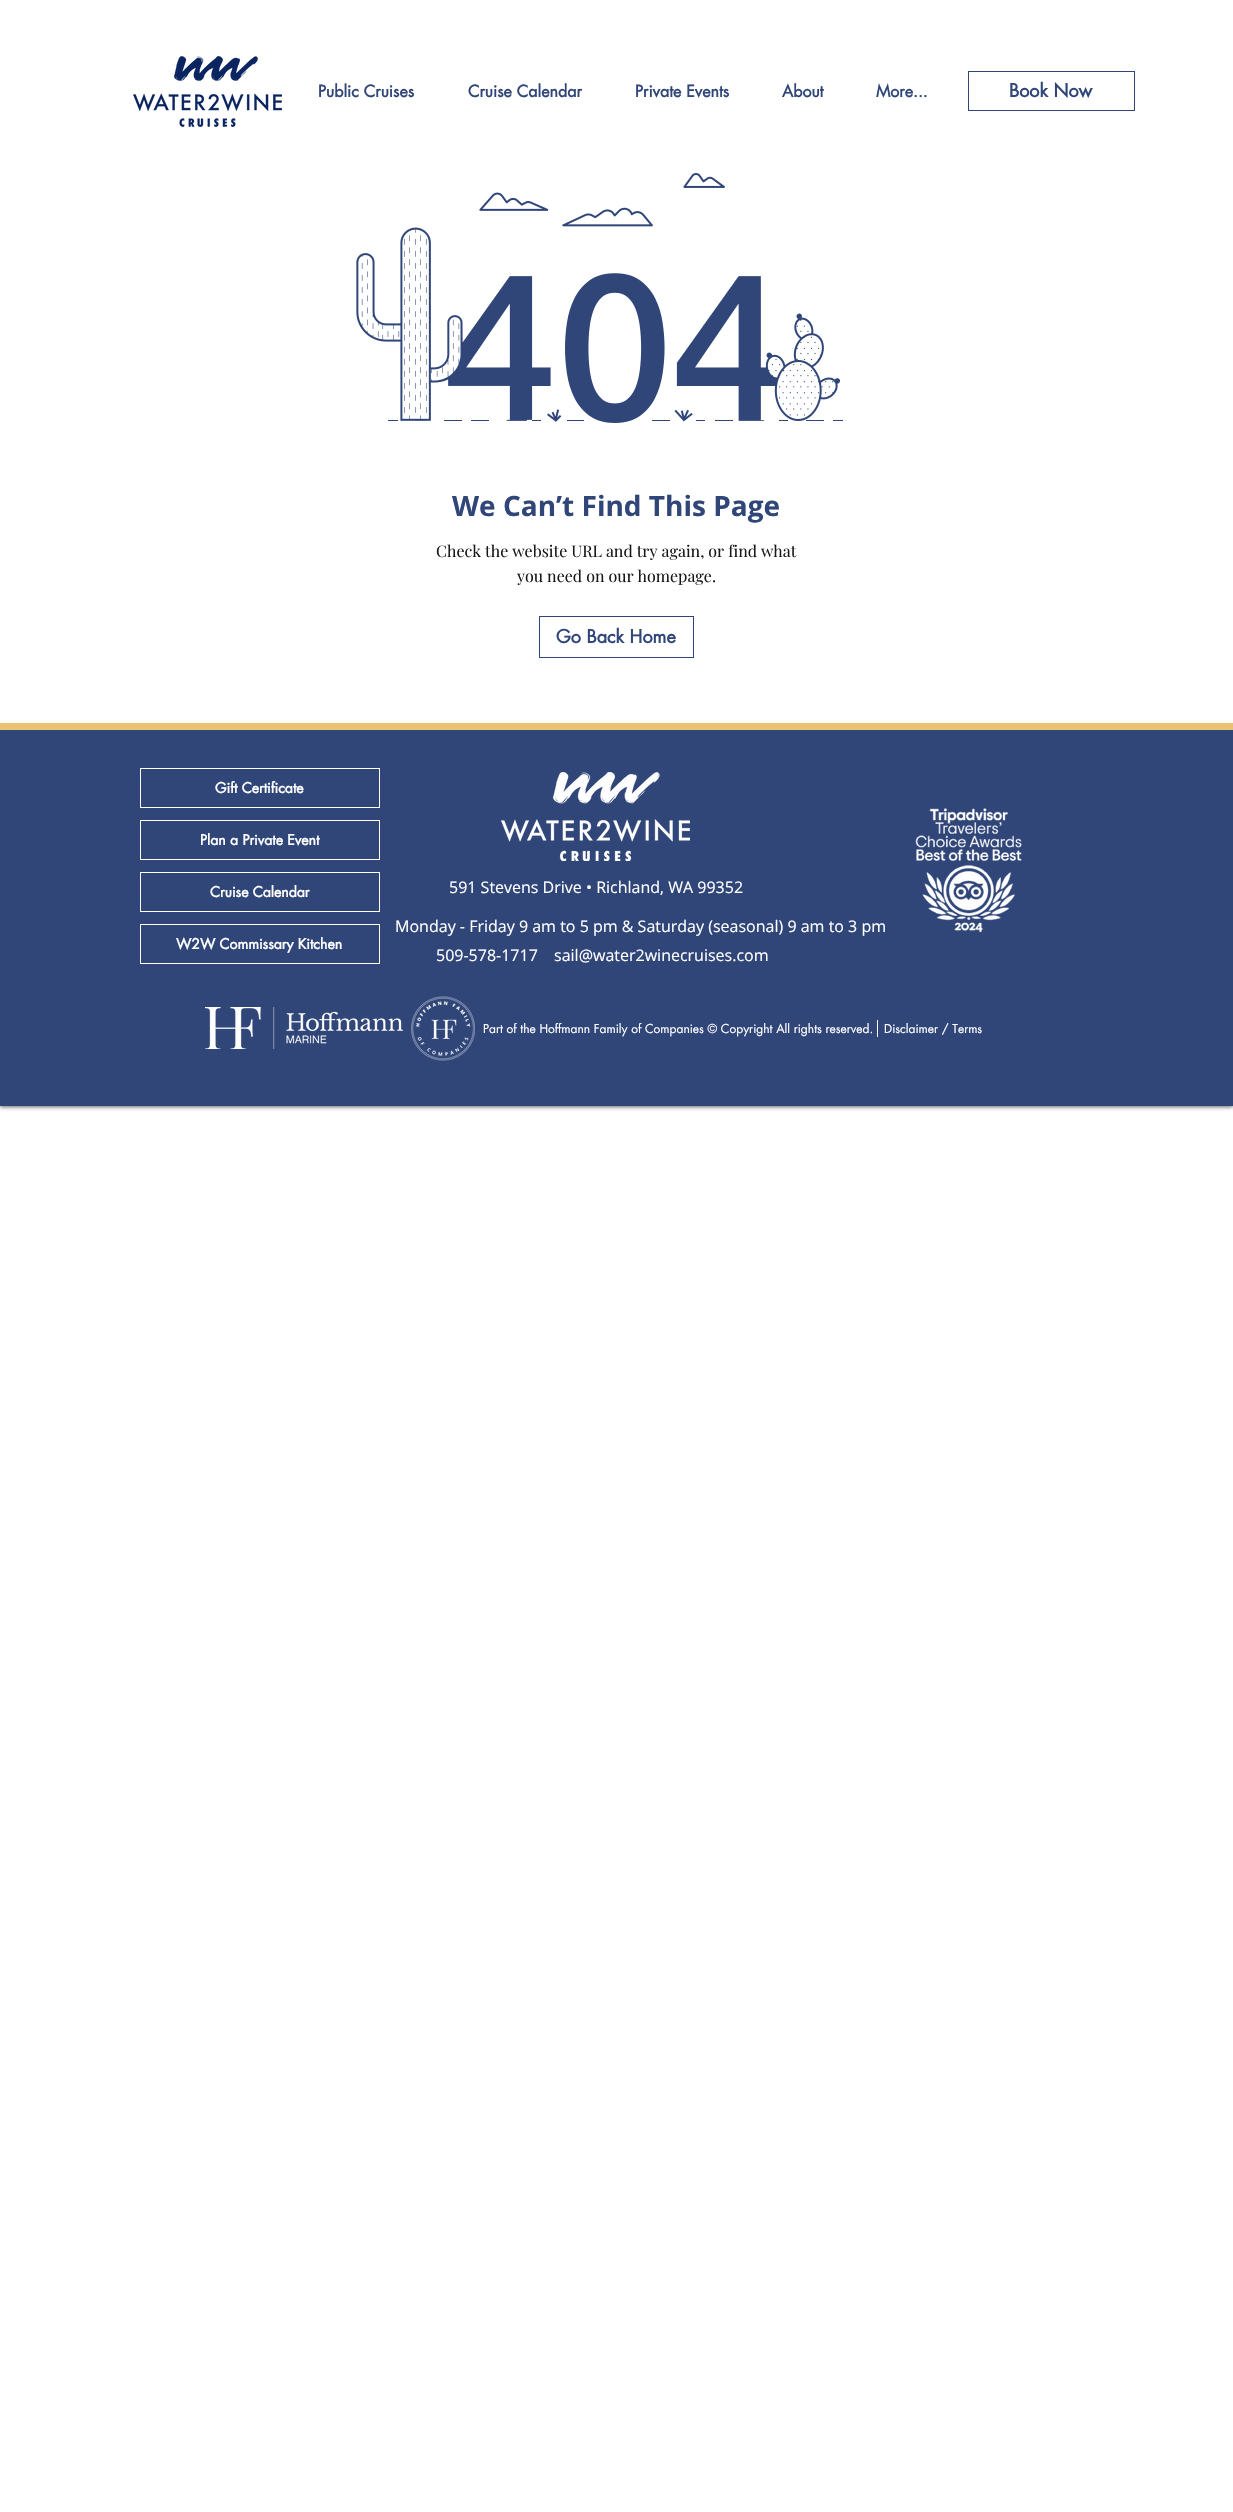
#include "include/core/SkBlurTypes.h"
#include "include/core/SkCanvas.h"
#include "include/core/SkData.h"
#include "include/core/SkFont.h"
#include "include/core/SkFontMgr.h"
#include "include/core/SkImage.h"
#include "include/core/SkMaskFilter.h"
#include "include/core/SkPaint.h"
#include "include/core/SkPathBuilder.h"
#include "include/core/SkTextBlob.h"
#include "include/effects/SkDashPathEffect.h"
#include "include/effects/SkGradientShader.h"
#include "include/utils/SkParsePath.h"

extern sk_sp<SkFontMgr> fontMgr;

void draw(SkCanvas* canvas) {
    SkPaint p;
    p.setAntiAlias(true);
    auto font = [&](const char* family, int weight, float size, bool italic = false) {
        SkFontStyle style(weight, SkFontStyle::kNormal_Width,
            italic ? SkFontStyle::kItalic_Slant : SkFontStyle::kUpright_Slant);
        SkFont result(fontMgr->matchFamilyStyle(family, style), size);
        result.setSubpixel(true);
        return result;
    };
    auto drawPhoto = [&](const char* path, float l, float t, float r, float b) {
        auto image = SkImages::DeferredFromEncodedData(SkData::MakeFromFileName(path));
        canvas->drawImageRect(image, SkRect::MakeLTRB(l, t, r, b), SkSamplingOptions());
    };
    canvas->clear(0xFFFFFFFF);
    drawPhoto("media/1.png", 133, 56, 282, 127);
    auto font1 = font("futura", 700, 16);
    p.setColor(0xFF304679);
    {
        const struct { const char* s; float x, y; } items[] = {
            {"Public Cruises", 318, 97},
            {"Cruise Calendar", 468, 97},
            {"Private Events", 635, 97},
            {"About", 782, 97},
            {"More...", 876, 97},
        };
        for (auto [s, x, y] : items) {
            canvas->drawString(s, x, y, font1, p);
        }
    }
    p.setStyle(SkPaint::kStroke_Style);
    p.setStrokeWidth(1);
    canvas->drawRect(SkRect::MakeLTRB(968.5f, 71.5f, 1134.5f, 110.5f), p);
    auto font2 = font("futura", 700, 18);
    p.setStyle(SkPaint::kFill_Style);
    canvas->drawString("Book Now", 1009, 97, font2, p);
    drawPhoto("media/2.png", 356, 173, 843, 423);
    auto font3 = font("Open Sans", 700, 28);
    canvas->drawString("We Can’t Find This Page", 452, 516, font3, p);
    auto font4 = font("Playfair Display", 400, 16);
    p.setColor(0xFF181717);
    canvas->drawString("Check the website URL and try again, or find what", 436, 557, font4, p);
    canvas->drawString("you need on our homepage.", 517, 582, font4, p);
    p.setStyle(SkPaint::kStroke_Style);
    p.setColor(0xFF304679);
    canvas->drawRect(SkRect::MakeLTRB(539.5f, 616.5f, 693.5f, 657.5f), p);
    p.setStyle(SkPaint::kFill_Style);
    canvas->drawString("Go Back Home", 556, 643, font2, p);
    p.setColor(0x99000000);
    p.setMaskFilter(SkMaskFilter::MakeBlur(kNormal_SkBlurStyle, 2));
    canvas->drawRect(SkRect::MakeLTRB(0, 726, 1233, 1107), p);
    p.setMaskFilter(nullptr);
    p.setColor(0xFF304679);
    canvas->drawRect(SkRect::MakeLTRB(0, 730, 1233, 1106), p);
    p.setColor(0xFFE9C373);
    canvas->drawRect(SkRect::MakeLTRB(0, 723, 1233, 730), p);
    p.setStyle(SkPaint::kStroke_Style);
    p.setColor(0xFFFFFFFF);
    canvas->drawRect(SkRect::MakeLTRB(140.5f, 768.5f, 379.5f, 807.5f), p);
    auto font5 = font("futura", 700, 14);
    p.setStyle(SkPaint::kFill_Style);
    canvas->drawString("Gift Certificate", 215, 793, font5, p);
    drawPhoto("media/3.png", 501, 772, 690, 861);
    p.setStyle(SkPaint::kStroke_Style);
    canvas->drawRect(SkRect::MakeLTRB(140.5f, 820.5f, 379.5f, 859.5f), p);
    p.setStyle(SkPaint::kFill_Style);
    canvas->drawString("Plan a Private Event", 200, 845, font5, p);
    drawPhoto("media/4.png", 915, 808, 1022, 933);
    p.setStyle(SkPaint::kStroke_Style);
    canvas->drawRect(SkRect::MakeLTRB(140.5f, 872.5f, 379.5f, 911.5f), p);
    p.setStyle(SkPaint::kFill_Style);
    canvas->drawString("Cruise Calendar", 210, 897, font5, p);
    auto font6 = font("Open Sans", 400, 16);
    canvas->drawString("591 Stevens Drive • Richland, WA 99352", 449, 893, font6, p);
    canvas->drawString("Monday - Friday 9 am to 5 pm & Saturday (seasonal) 9 am to 3 pm", 395, 932, font6, p);
    p.setStyle(SkPaint::kStroke_Style);
    canvas->drawRect(SkRect::MakeLTRB(140.5f, 924.5f, 379.5f, 963.5f), p);
    p.setStyle(SkPaint::kFill_Style);
    canvas->drawString("W2W Commissary Kitchen", 176, 949, font5, p);
    canvas->drawString("509-578-1717", 436, 961, font6, p);
    canvas->drawString("sail@water2winecruises.com", 554, 961, font6, p);
    drawPhoto("media/5.png", 205, 1007, 403, 1049);
    drawPhoto("media/6.png", 411, 996, 475, 1061);
    auto font7 = font("futura", 400, 12);
    canvas->drawString("Part of the Hoffmann Family of Companies © Copyright All rights reserved.", 483, 1033, font7, p);
    canvas->drawRect(SkRect::MakeLTRB(877, 1020, 878, 1037), p);
    canvas->drawString("Disclaimer / Terms", 884, 1033, font7, p);
}
